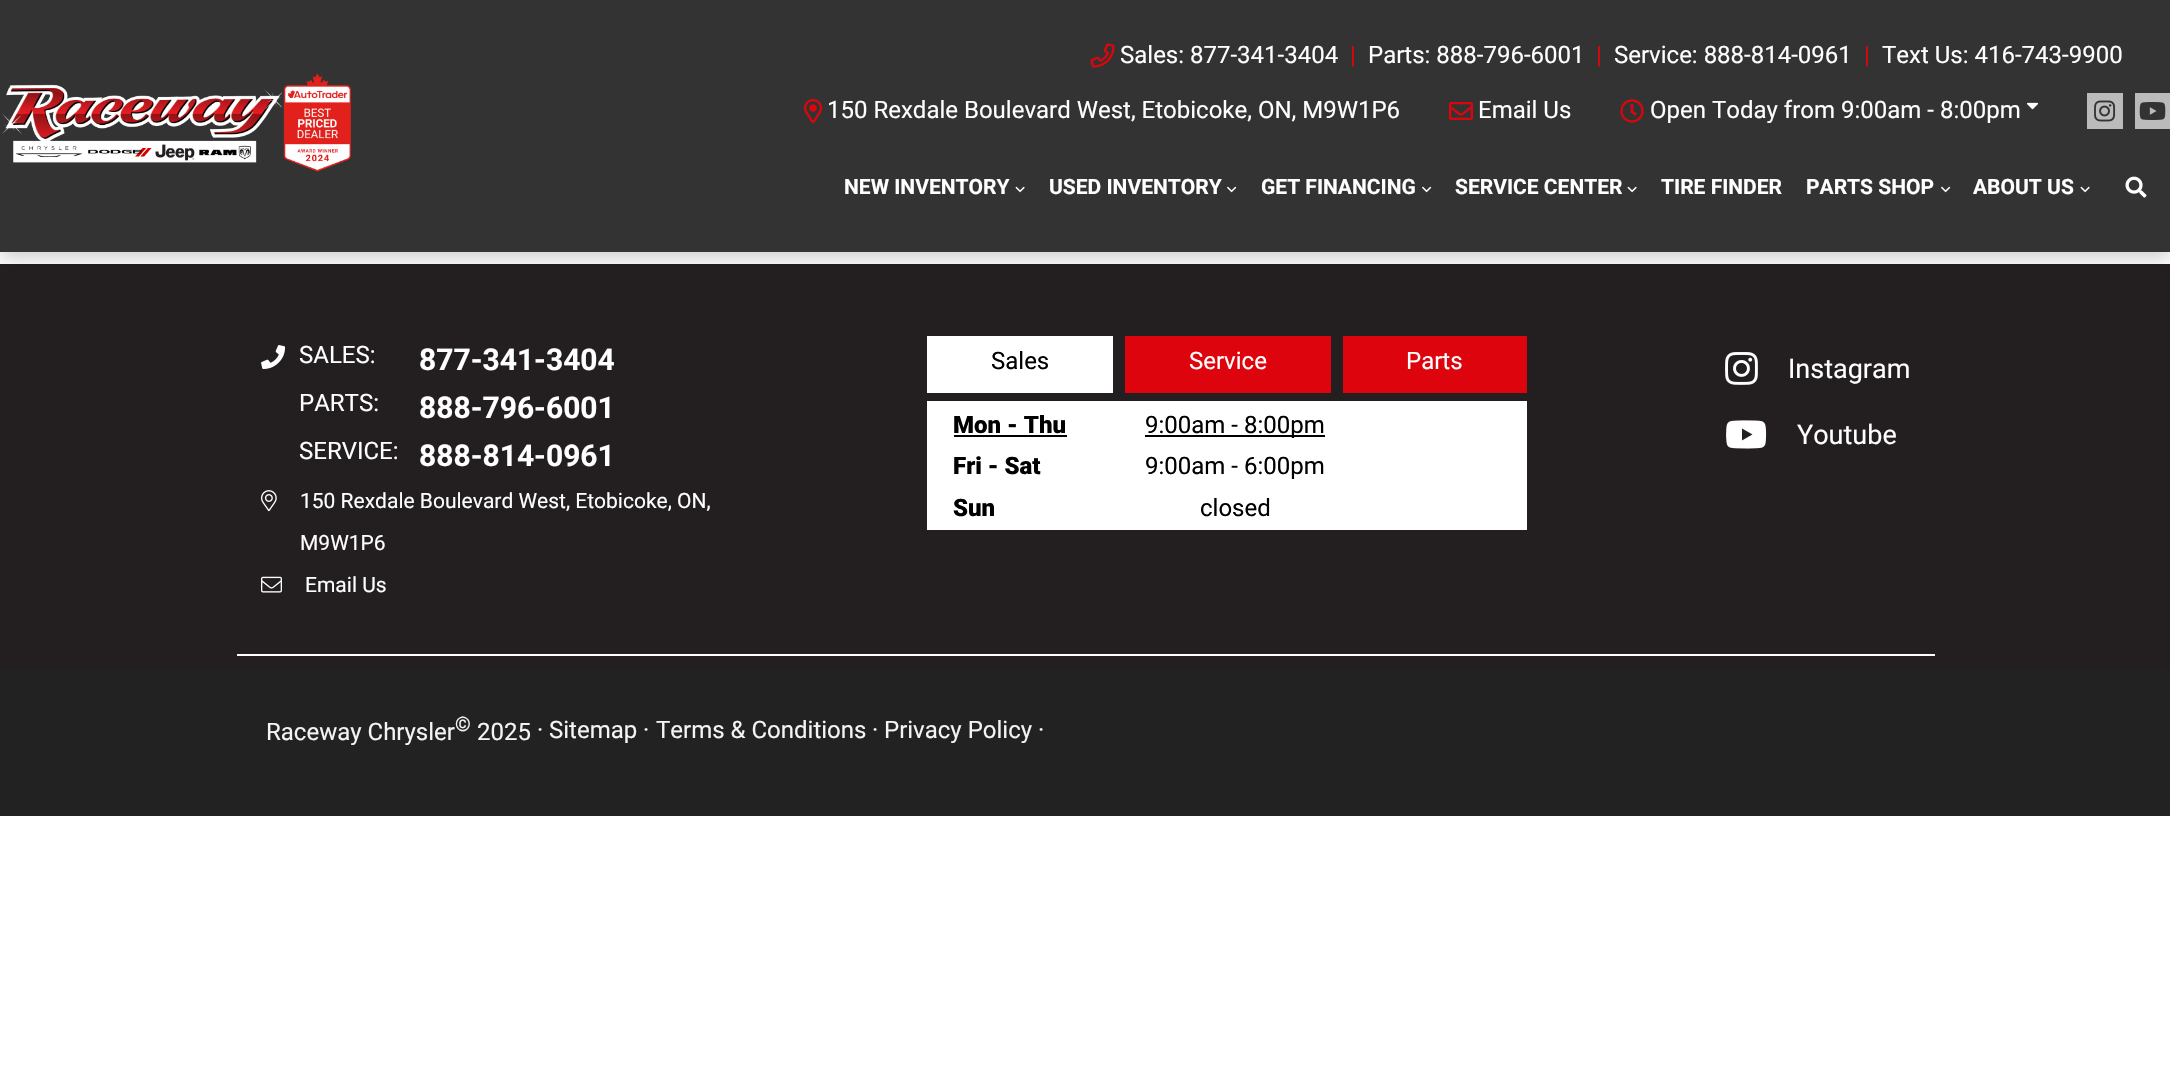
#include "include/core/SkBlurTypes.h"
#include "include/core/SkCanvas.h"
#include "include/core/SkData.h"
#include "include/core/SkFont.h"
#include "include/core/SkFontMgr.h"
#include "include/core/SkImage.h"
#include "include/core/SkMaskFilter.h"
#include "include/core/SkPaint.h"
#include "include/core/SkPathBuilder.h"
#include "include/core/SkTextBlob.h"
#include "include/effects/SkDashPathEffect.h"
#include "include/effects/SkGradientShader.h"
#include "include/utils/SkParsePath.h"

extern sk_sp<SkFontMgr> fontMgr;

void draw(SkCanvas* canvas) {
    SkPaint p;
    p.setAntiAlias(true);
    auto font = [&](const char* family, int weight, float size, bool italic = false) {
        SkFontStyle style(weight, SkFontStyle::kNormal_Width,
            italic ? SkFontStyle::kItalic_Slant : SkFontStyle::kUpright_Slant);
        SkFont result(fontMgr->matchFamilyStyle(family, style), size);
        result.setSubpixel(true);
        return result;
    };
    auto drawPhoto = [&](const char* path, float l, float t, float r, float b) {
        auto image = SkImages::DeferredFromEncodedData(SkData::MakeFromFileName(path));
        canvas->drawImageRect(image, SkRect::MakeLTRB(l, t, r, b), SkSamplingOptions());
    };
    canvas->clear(0xFFFFFFFF);
    p.setColor(0xFF333333);
    canvas->drawRect(SkRect::MakeLTRB(0, 0, 2170, 252), p);
    p.setColor(0xFF231F20);
    canvas->drawRect(SkRect::MakeLTRB(0, 264, 2170, 668), p);
    canvas->save();
    canvas->clipRect(SkRect::MakeLTRB(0, 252, 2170, 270));
    p.setColor(0x33000000);
    p.setMaskFilter(SkMaskFilter::MakeBlur(kNormal_SkBlurStyle, 9));
    canvas->drawRect(SkRect::MakeLTRB(0, 6, 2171, 258), p);
    p.setMaskFilter(nullptr);
    canvas->restore();
    drawPhoto("media/1.png", 2, 73, 351, 172);
    drawPhoto("media/2.png", 1090, 43, 1115, 68);
    auto font1 = font("Roboto", 400, 24);
    p.setColor(0xFFFFFFFF);
    canvas->drawString("Sales: 877-341-3404", 1120, 63, font1, p);
    p.setColor(0xFFDE040D);
    canvas->drawString("|", 1350, 63, font1, p);
    p.setColor(0xFFFFFFFF);
    canvas->drawString("Parts: 888-796-6001", 1368, 63, font1, p);
    p.setColor(0xFFDE040D);
    canvas->drawString("|", 1596, 63, font1, p);
    p.setColor(0xFFFFFFFF);
    canvas->drawString("Service: 888-814-0961", 1614, 63, font1, p);
    p.setColor(0xFFDE040D);
    canvas->drawString("|", 1864, 63, font1, p);
    p.setColor(0xFFFFFFFF);
    canvas->drawString("Text Us: 416-743-9900", 1882, 63, font1, p);
    drawPhoto("media/3.png", 804, 99, 822, 123);
    canvas->drawString("150 Rexdale Boulevard West, Etobicoke, ON, M9W1P6", 827, 118, font1, p);
    drawPhoto("media/4.png", 1449, 102, 1473, 120);
    canvas->drawString("Email Us", 1478, 118, font1, p);
    drawPhoto("media/5.png", 1620, 99, 1644, 123);
    canvas->drawString("Open Today from 9:00am - 8:00pm", 1650, 118, font1, p);
    drawPhoto("media/6.png", 2026, 102, 2038, 110);
    p.setColor(0xFFBBBBBB);
    canvas->drawRect(SkRect::MakeLTRB(2087, 93, 2123, 129), p);
    drawPhoto("media/7.png", 2094, 100, 2116, 122);
    canvas->drawRect(SkRect::MakeLTRB(2135, 93, 2170, 129), p);
    drawPhoto("media/8.png", 2139, 102, 2166, 120);
    auto font2 = font("Roboto", 700, 21);
    p.setColor(0xFFFFFFFF);
    canvas->drawString("NEW INVENTORY", 844, 194, font2, p);
    drawPhoto("media/9.png", 1015, 186, 1025, 193);
    canvas->drawString("USED INVENTORY", 1049, 194, font2, p);
    drawPhoto("media/10.png", 1227, 186, 1237, 193);
    canvas->drawString("GET FINANCING", 1261, 194, font2, p);
    drawPhoto("media/10.png", 1422, 186, 1432, 193);
    canvas->drawString("SERVICE CENTER", 1455, 194, font2, p);
    drawPhoto("media/9.png", 1627, 186, 1637, 193);
    canvas->drawString("TIRE FINDER", 1661, 194, font2, p);
    canvas->drawString("PARTS SHOP", 1806, 194, font2, p);
    drawPhoto("media/10.png", 1941, 186, 1951, 193);
    canvas->drawString("ABOUT US", 1973, 194, font2, p);
    drawPhoto("media/9.png", 2080, 186, 2090, 193);
    drawPhoto("media/11.png", 2125, 176, 2147, 198);
    canvas->drawRect(SkRect::MakeLTRB(237, 654, 1935, 656), p);
    drawPhoto("media/12.png", 261, 345, 286, 369);
    canvas->drawString("SALES:", 299, 363, font1, p);
    auto font3 = font("Roboto", 700, 30);
    canvas->drawString("877-341-3404", 419, 370, font3, p);
    canvas->drawString("PARTS:", 299, 411, font1, p);
    canvas->drawString("888-796-6001", 419, 418, font3, p);
    canvas->drawString("SERVICE:", 299, 459, font1, p);
    canvas->drawString("888-814-0961", 419, 466, font3, p);
    drawPhoto("media/13.png", 261, 490, 277, 512);
    auto font4 = font("Roboto", 400, 21);
    canvas->drawString("150 Rexdale Boulevard West, Etobicoke, ON,", 300, 508, font4, p);
    canvas->drawString("M9W1P6", 300, 550, font4, p);
    drawPhoto("media/14.png", 261, 576, 282, 593);
    canvas->drawString("Email Us", 305, 592, font4, p);
    canvas->drawRect(SkRect::MakeLTRB(927, 336, 1113, 393), p);
    p.setColor(0xFF000000);
    canvas->drawString("Sales", 991, 369, font1, p);
    p.setColor(0xFFDE040D);
    canvas->drawRect(SkRect::MakeLTRB(1125, 336, 1331, 393), p);
    p.setColor(0xFFFFFFFF);
    canvas->drawString("Service", 1189, 369, font1, p);
    p.setColor(0xFFDE040D);
    canvas->drawRect(SkRect::MakeLTRB(1343, 336, 1527, 393), p);
    p.setColor(0xFFFFFFFF);
    canvas->drawString("Parts", 1406, 369, font1, p);
    canvas->drawRect(SkRect::MakeLTRB(927, 401, 1527, 530), p);
    auto font5 = font("Roboto", 900, 24);
    p.setColor(0xFF000000);
    canvas->drawString("Mon - Thu", 953, 433, font5, p);
    canvas->drawRect(SkRect::MakeLTRB(954, 435, 1067, 437), p);
    canvas->drawRect(SkRect::MakeLTRB(1145, 435, 1325, 437), p);
    canvas->drawString("9:00am - 8:00pm", 1145, 433, font1, p);
    canvas->drawString("Fri - Sat", 953, 474, font5, p);
    canvas->drawString("9:00am - 6:00pm", 1145, 474, font1, p);
    canvas->drawString("Sun", 953, 516, font5, p);
    canvas->drawString("closed", 1200, 516, font1, p);
    drawPhoto("media/15.png", 1725, 352, 1758, 385);
    auto font6 = font("Roboto", 400, 27);
    p.setColor(0xFFFFFFFF);
    canvas->drawString("Instagram", 1788, 378, font6, p);
    drawPhoto("media/16.png", 1726, 420, 1767, 449);
    canvas->drawString("Youtube", 1797, 444, font6, p);
    p.setColor(0xFF222222);
    canvas->drawRect(SkRect::MakeLTRB(0, 668, 2170, 816), p);
    p.setColor(0xFFF4F4F4);
    canvas->drawString("Raceway Chrysler", 266, 740, font1, p);
    auto font7 = font("Roboto", 400, 20);
    canvas->drawString("©", 455, 731, font7, p);
    canvas->drawString("2025", 477, 740, font1, p);
    p.setColor(0xFFFFFFFF);
    canvas->drawString("·", 537, 738, font1, p);
    p.setColor(0xFFF4F4F4);
    canvas->drawString("Sitemap", 549, 738, font1, p);
    p.setColor(0xFFFFFFFF);
    canvas->drawString("·", 643, 738, font1, p);
    p.setColor(0xFFF4F4F4);
    canvas->drawString("Terms & Conditions", 656, 738, font1, p);
    p.setColor(0xFFFFFFFF);
    canvas->drawString("·", 872, 738, font1, p);
    p.setColor(0xFFF4F4F4);
    canvas->drawString("Privacy Policy", 884, 738, font1, p);
    p.setColor(0xFFFFFFFF);
    canvas->drawString("·", 1038, 738, font1, p);
}
